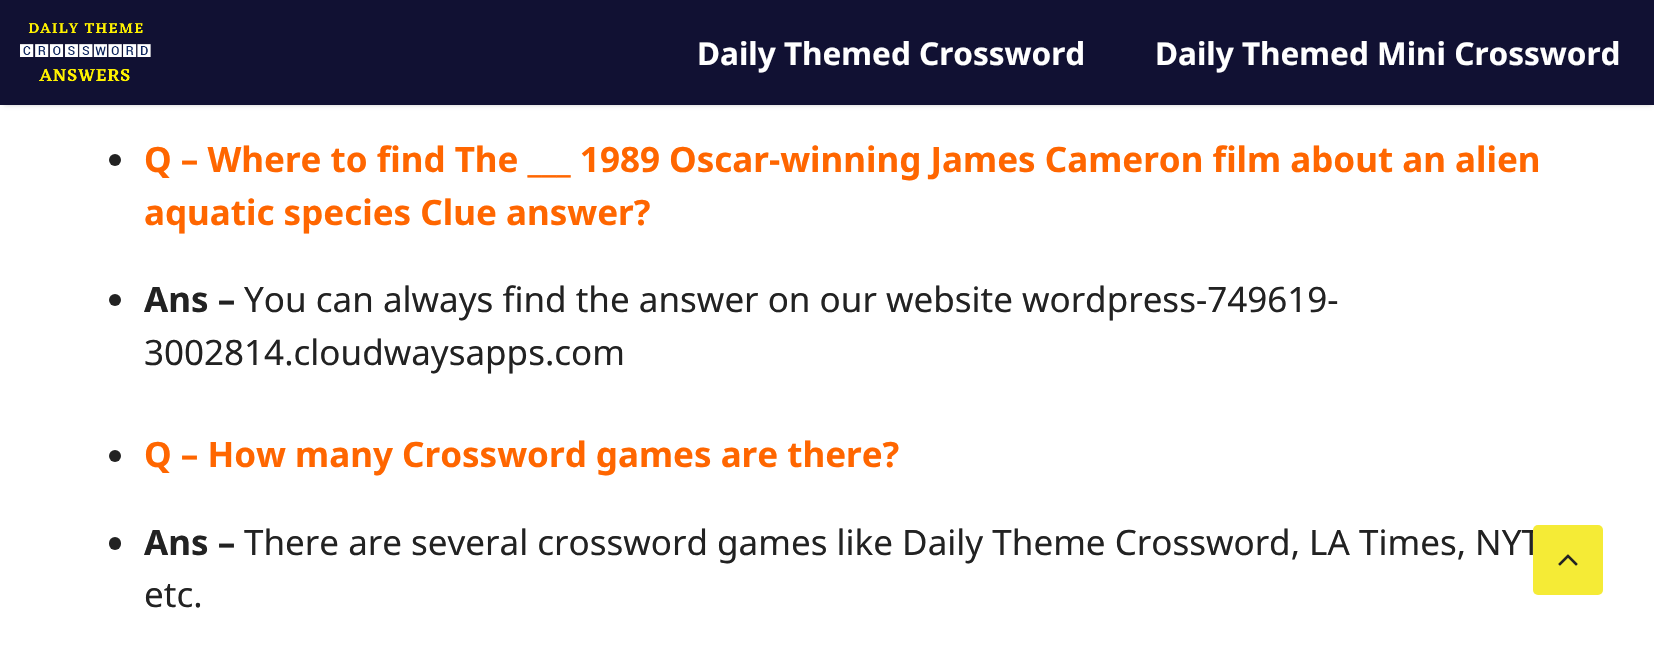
#include "include/core/SkBlurTypes.h"
#include "include/core/SkCanvas.h"
#include "include/core/SkData.h"
#include "include/core/SkFont.h"
#include "include/core/SkFontMgr.h"
#include "include/core/SkImage.h"
#include "include/core/SkMaskFilter.h"
#include "include/core/SkPaint.h"
#include "include/core/SkPathBuilder.h"
#include "include/core/SkTextBlob.h"
#include "include/effects/SkDashPathEffect.h"
#include "include/effects/SkGradientShader.h"
#include "include/utils/SkParsePath.h"

extern sk_sp<SkFontMgr> fontMgr;

void draw(SkCanvas* canvas) {
    SkPaint p;
    p.setAntiAlias(true);
    auto font = [&](const char* family, int weight, float size, bool italic = false) {
        SkFontStyle style(weight, SkFontStyle::kNormal_Width,
            italic ? SkFontStyle::kItalic_Slant : SkFontStyle::kUpright_Slant);
        SkFont result(fontMgr->matchFamilyStyle(family, style), size);
        result.setSubpixel(true);
        return result;
    };
    auto drawPhoto = [&](const char* path, float l, float t, float r, float b) {
        auto image = SkImages::DeferredFromEncodedData(SkData::MakeFromFileName(path));
        canvas->drawImageRect(image, SkRect::MakeLTRB(l, t, r, b), SkSamplingOptions());
    };
    canvas->clear(0xFFFFFFFF);
    p.setColor(0x33000000);
    p.setMaskFilter(SkMaskFilter::MakeBlur(kNormal_SkBlurStyle, 2));
    canvas->drawRect(SkRect::MakeLTRB(4, 7, 1652, 105), p);
    p.setMaskFilter(nullptr);
    p.setColor(0xFF111133);
    canvas->drawRect(SkRect::MakeLTRB(0, 0, 1654, 105), p);
    drawPhoto("media/1.png", 20, 23, 151, 82);
    auto font1 = font("Noto Sans", 700, 31.5f);
    p.setColor(0xFFFFFFFF);
    canvas->drawString("Daily Themed Crossword", 697, 65, font1, p);
    canvas->drawString("Daily Themed Mini Crossword", 1155, 65, font1, p);
    p.setColor(0xFF222222);
    canvas->drawCircle(115, 160, 6, p);
    auto font2 = font("Noto Sans", 700, 35);
    p.setColor(0xFFFF6600);
    canvas->drawString("Q – Where to find The ___ 1989 Oscar-winning James Cameron film about an alien", 144, 172, font2, p);
    canvas->drawString("aquatic species Clue answer?", 144, 225, font2, p);
    p.setColor(0xFF222222);
    canvas->drawCircle(115, 300, 6, p);
    canvas->drawString("Ans –", 144, 312, font2, p);
    auto font3 = font("Noto Sans", 400, 35);
    canvas->drawString("You can always find the answer on our website wordpress-749619-", 244, 312, font3, p);
    canvas->drawString("3002814.cloudwaysapps.com", 144, 365, font3, p);
    canvas->drawCircle(115, 456, 6, p);
    p.setColor(0xFFFF6600);
    canvas->drawString("Q – How many Crossword games are there?", 144, 467, font2, p);
    p.setColor(0xFF222222);
    canvas->drawRoundRect(SkRect::MakeLTRB(109, 537, 121, 550), 6, 6, p);
    canvas->drawString("Ans –", 144, 555, font2, p);
    canvas->drawString("There are several crossword games like Daily Theme Crossword, LA Times, NYT", 244, 555, font3, p);
    canvas->drawString("etc.", 144, 607, font3, p);
    p.setColor(0xFFF5EB36);
    canvas->drawRoundRect(SkRect::MakeLTRB(1533, 525, 1603, 595), 5, 5, p);
    drawPhoto("media/2.png", 1558, 554, 1578, 566);
}
